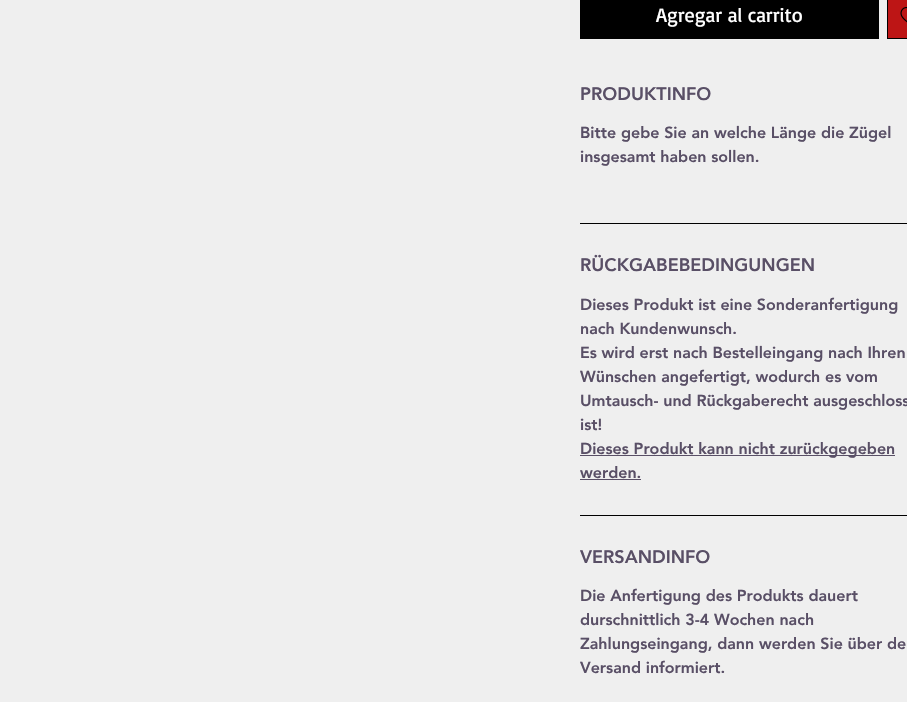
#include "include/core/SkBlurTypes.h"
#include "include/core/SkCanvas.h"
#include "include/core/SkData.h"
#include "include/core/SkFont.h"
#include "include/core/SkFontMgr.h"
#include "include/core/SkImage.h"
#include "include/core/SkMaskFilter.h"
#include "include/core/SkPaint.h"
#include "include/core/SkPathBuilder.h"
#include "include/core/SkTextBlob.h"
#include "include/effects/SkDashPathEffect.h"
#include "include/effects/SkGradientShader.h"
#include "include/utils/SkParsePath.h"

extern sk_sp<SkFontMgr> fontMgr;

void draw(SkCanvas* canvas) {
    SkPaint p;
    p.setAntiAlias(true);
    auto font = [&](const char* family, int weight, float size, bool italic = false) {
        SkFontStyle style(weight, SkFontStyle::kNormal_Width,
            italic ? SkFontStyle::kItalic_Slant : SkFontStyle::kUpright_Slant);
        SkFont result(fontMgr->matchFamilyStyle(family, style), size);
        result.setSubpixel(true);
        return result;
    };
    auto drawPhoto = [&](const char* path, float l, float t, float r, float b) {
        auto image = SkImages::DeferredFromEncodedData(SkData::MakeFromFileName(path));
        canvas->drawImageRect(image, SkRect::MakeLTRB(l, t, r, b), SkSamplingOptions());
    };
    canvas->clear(0xFFEFEFEF);
    p.setColor(0xFF000000);
    canvas->drawRect(SkRect::MakeLTRB(580, 0, 879, 39), p);
    auto font1 = font("Basic", 400, 20);
    p.setColor(0xFFFFFFFF);
    canvas->drawString("Agregar al carrito", 656, 22, font1, p);
    p.setColor(0xFFBD1515);
    canvas->drawRect(SkRect::MakeLTRB(887.5f, -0.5f, 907.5f, 38.5f), p);
    p.setStyle(SkPaint::kStroke_Style);
    p.setStrokeWidth(1);
    p.setColor(0xFF000000);
    canvas->drawRect(SkRect::MakeLTRB(887.5f, -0.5f, 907.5f, 38.5f), p);
    drawPhoto("media/1.png", 900, 7, 907, 23);
    p.setStyle(SkPaint::kFill_Style);
    canvas->drawRect(SkRect::MakeLTRB(580, 223, 907, 224), p);
    auto font2 = font("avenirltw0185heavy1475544", 900, 18);
    p.setColor(0xFF594F66);
    canvas->drawString("PRODUKTINFO", 580, 100, font2, p);
    auto font3 = font("avenirltw0185heavy1475544", 900, 16);
    canvas->drawString("Bitte gebe Sie an welche Länge die Zügel", 580, 138, font3, p);
    canvas->drawString("insgesamt haben sollen.", 580, 162, font3, p);
    p.setColor(0xFF000000);
    canvas->drawRect(SkRect::MakeLTRB(580, 515, 907, 516), p);
    p.setColor(0xFF594F66);
    canvas->drawString("RÜCKGABEBEDINGUNGEN", 580, 271, font2, p);
    {
        const struct { const char* s; float x, y; } items[] = {
            {"Dieses Produkt ist eine Sonderanfertigung", 580, 310},
            {"nach Kundenwunsch.", 580, 334},
            {"Es wird erst nach Bestelleingang nach Ihren", 580, 358},
            {"Wünschen angefertigt, wodurch es vom", 580, 382},
            {"Umtausch- und Rückgaberecht ausgeschloss", 580, 406},
            {"ist!", 580, 430},
        };
        for (auto [s, x, y] : items) {
            canvas->drawString(s, x, y, font3, p);
        }
    }
    canvas->drawRect(SkRect::MakeLTRB(580, 455, 895, 456), p);
    canvas->drawString("Dieses Produkt kann nicht zurückgegeben", 580, 454, font3, p);
    canvas->drawString("werden.", 580, 478, font3, p);
    canvas->drawRect(SkRect::MakeLTRB(580, 479, 641, 480), p);
    canvas->drawString("VERSANDINFO", 580, 563, font2, p);
    {
        const struct { const char* s; float x, y; } items[] = {
            {"Die Anfertigung des Produkts dauert", 580, 601},
            {"durschnittlich 3-4 Wochen nach", 580, 625},
            {"Zahlungseingang, dann werden Sie über de", 580, 649},
            {"Versand informiert.", 580, 673},
        };
        for (auto [s, x, y] : items) {
            canvas->drawString(s, x, y, font3, p);
        }
    }
}
